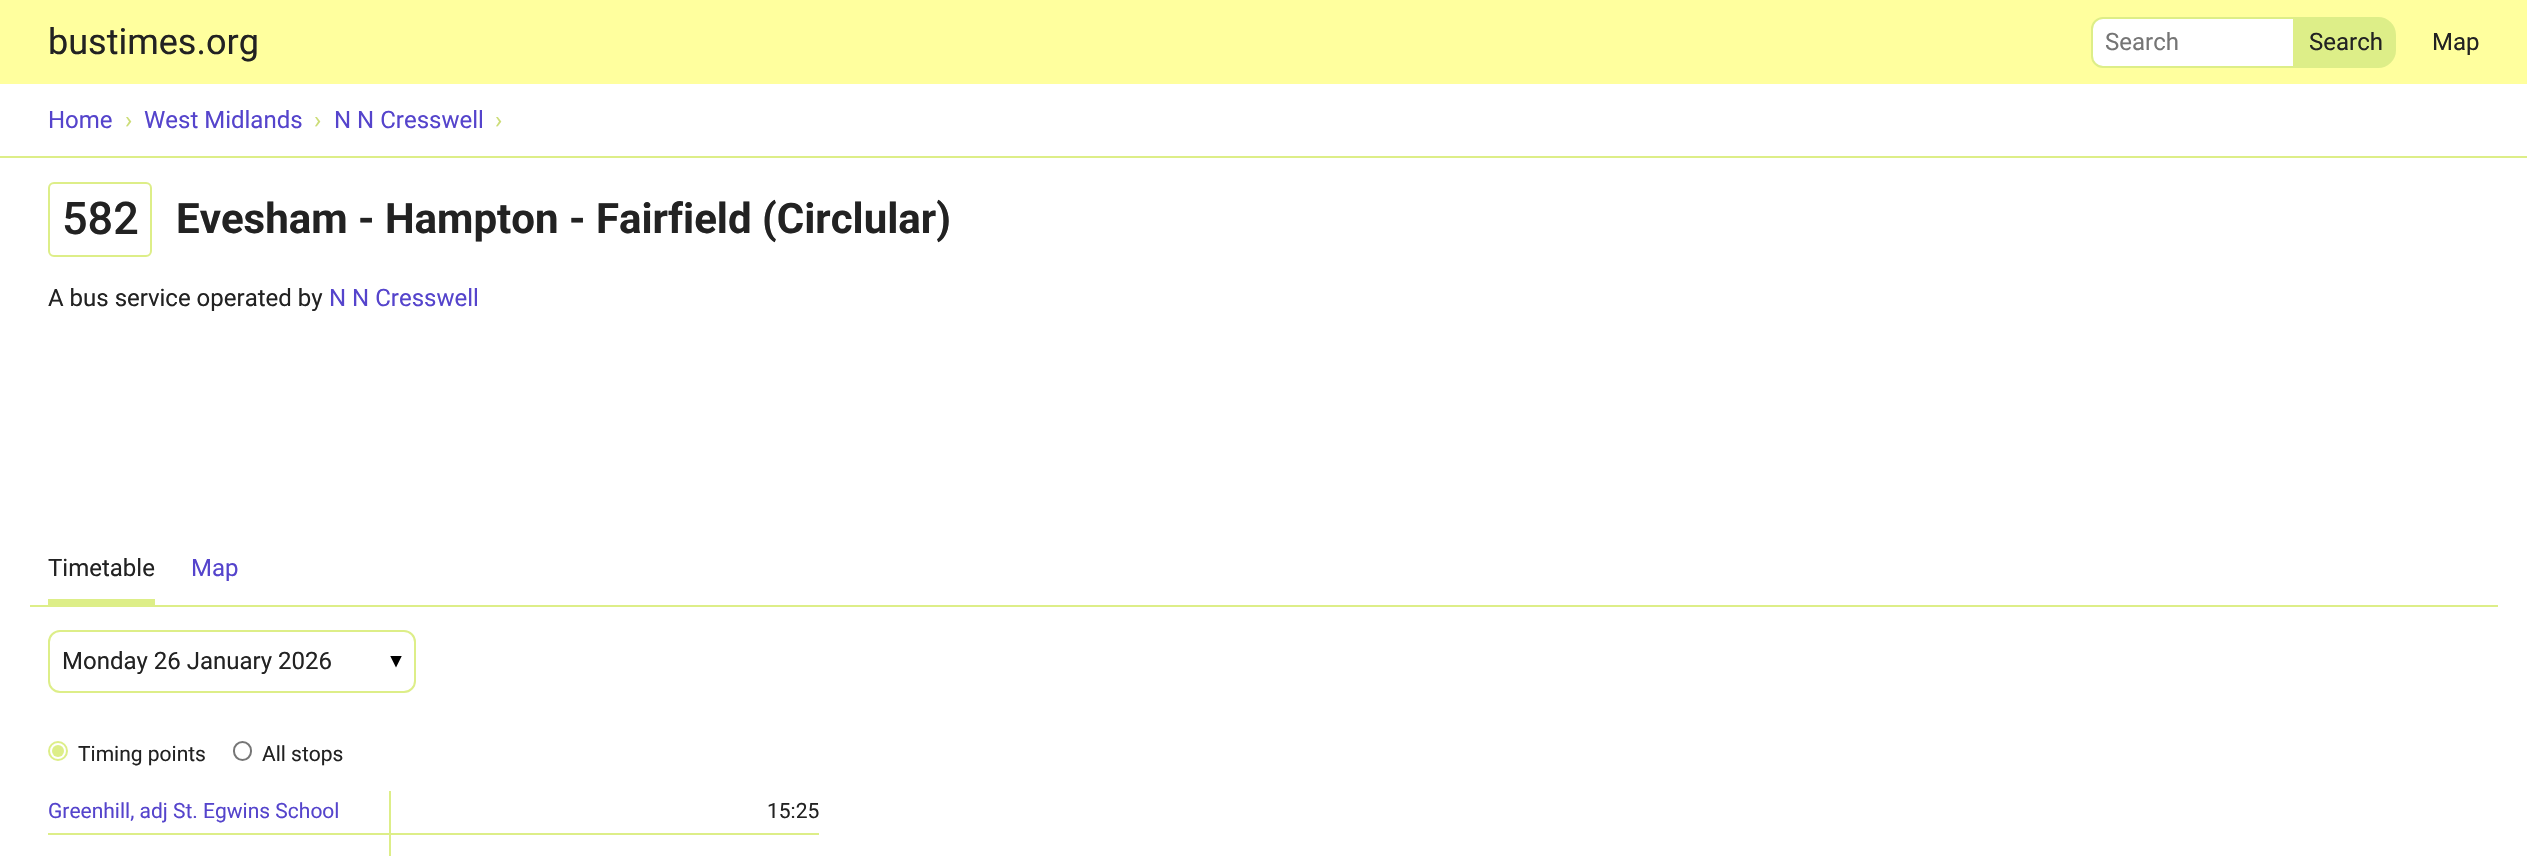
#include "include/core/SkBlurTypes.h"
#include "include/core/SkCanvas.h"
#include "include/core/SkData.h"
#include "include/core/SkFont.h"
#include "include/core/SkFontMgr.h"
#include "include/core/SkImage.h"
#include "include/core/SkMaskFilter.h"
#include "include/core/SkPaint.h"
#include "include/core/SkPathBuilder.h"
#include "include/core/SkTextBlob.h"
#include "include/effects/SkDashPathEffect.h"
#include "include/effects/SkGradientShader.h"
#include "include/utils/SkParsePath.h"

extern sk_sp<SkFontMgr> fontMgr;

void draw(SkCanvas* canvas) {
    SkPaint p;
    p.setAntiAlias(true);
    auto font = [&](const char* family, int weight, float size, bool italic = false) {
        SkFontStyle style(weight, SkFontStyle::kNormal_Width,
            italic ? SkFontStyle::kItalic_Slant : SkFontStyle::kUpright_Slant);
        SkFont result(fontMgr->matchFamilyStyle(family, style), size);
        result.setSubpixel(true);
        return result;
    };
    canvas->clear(0xFFFFFFFF);
    p.setColor(0xFFFFFF9E);
    canvas->drawRect(SkRect::MakeLTRB(0, 0, 2527, 84), p);
    auto font1 = font("Roboto", 400, 36);
    p.setColor(0xFF222222);
    canvas->drawString("bustimes.org", 48, 54, font1, p);
    p.setColor(0xFFFFFFFF);
    canvas->drawPath(SkPathBuilder().moveTo(2103, 18).lineTo(2294, 18).lineTo(2294, 67).lineTo(2103, 67).cubicTo(2097, 67, 2092, 62, 2092, 56).lineTo(2092, 29).cubicTo(2092, 23, 2097, 18, 2103, 18).close().detach(), p);
    p.setStyle(SkPaint::kStroke_Style);
    p.setStrokeWidth(2);
    p.setColor(0xFFDDEE88);
    canvas->drawPath(SkPathBuilder().moveTo(2103, 18).lineTo(2294, 18).lineTo(2294, 67).lineTo(2103, 67).cubicTo(2097, 67, 2092, 62, 2092, 56).lineTo(2092, 29).cubicTo(2092, 23, 2097, 18, 2103, 18).close().detach(), p);
    auto font2 = font("Roboto", 400, 24);
    p.setStyle(SkPaint::kFill_Style);
    p.setColor(0xFF757575);
    canvas->drawString("Search", 2105, 50, font2, p);
    p.setColor(0xFFDDEE88);
    canvas->drawPath(SkPathBuilder().moveTo(2296, 18).lineTo(2378, 18).cubicTo(2387.5f, 18, 2395, 25.5f, 2395, 35).lineTo(2395, 50).cubicTo(2395, 59.5f, 2387.5f, 67, 2378, 67).lineTo(2296, 67).close().detach(), p);
    p.setStyle(SkPaint::kStroke_Style);
    canvas->drawPath(SkPathBuilder().moveTo(2296, 18).lineTo(2378, 18).cubicTo(2387.5f, 18, 2395, 25.5f, 2395, 35).lineTo(2395, 50).cubicTo(2395, 59.5f, 2387.5f, 67, 2378, 67).lineTo(2296, 67).close().detach(), p);
    p.setStyle(SkPaint::kFill_Style);
    p.setColor(0xFF222222);
    canvas->drawString("Search", 2309, 50, font2, p);
    canvas->drawString("Map", 2432, 50, font2, p);
    p.setColor(0xFFDDEE88);
    canvas->drawRect(SkRect::MakeLTRB(0, 156, 2527, 158), p);
    p.setColor(0xFF5544CC);
    canvas->drawString("Home", 48, 128, font2, p);
    p.setColor(0xFFCCDD77);
    canvas->drawString("›", 125, 128, font2, p);
    p.setColor(0xFF5544CC);
    canvas->drawString("West Midlands", 144, 128, font2, p);
    p.setColor(0xFFCCDD77);
    canvas->drawString("›", 314, 128, font2, p);
    p.setColor(0xFF5544CC);
    canvas->drawString("N N Cresswell", 334, 128, font2, p);
    p.setColor(0xFFCCDD77);
    canvas->drawString("›", 495, 128, font2, p);
    p.setStyle(SkPaint::kStroke_Style);
    p.setColor(0xFFDDEE88);
    canvas->drawRoundRect(SkRect::MakeLTRB(49, 183, 151, 256), 5, 5, p);
    auto font3 = font("Roboto", 500, 45);
    p.setStyle(SkPaint::kFill_Style);
    p.setColor(0xFF222222);
    canvas->drawString("582", 62, 234, font3, p);
    auto font4 = font("Roboto", 700, 42);
    canvas->drawString("Evesham - Hampton - Fairfield (Circlular)", 176, 233, font4, p);
    canvas->drawString("A bus service operated by", 48, 306, font2, p);
    p.setColor(0xFF5544CC);
    canvas->drawString("N N Cresswell", 329, 306, font2, p);
    p.setColor(0xFFDDEE88);
    canvas->drawRect(SkRect::MakeLTRB(30, 605, 2498, 607), p);
    canvas->drawRect(SkRect::MakeLTRB(48, 599, 155, 605), p);
    p.setColor(0xFF222222);
    canvas->drawString("Timetable", 48, 576, font2, p);
    p.setColor(0xFF5544CC);
    canvas->drawString("Map", 191, 576, font2, p);
    canvas->save();
    canvas->clipRect(SkRect::MakeLTRB(390, 656, 414, 668));
    p.setColor(0xFF000000);
    canvas->drawPath(SkPathBuilder().moveTo(390, 655.5f).lineTo(396, 667.5f).lineTo(402, 655.5f).close().detach(), p);
    canvas->restore();
    p.setStyle(SkPaint::kStroke_Style);
    p.setColor(0xFFDDEE88);
    canvas->drawRoundRect(SkRect::MakeLTRB(49, 631, 415, 692), 11, 11, p);
    p.setStyle(SkPaint::kFill_Style);
    p.setColor(0xFF222222);
    canvas->drawString("Monday 26 January 2026", 62, 669, font2, p);
    p.setStyle(SkPaint::kStroke_Style);
    p.setColor(0xFFDDEE88);
    canvas->drawCircle(58, 751, 9, p);
    p.setStyle(SkPaint::kFill_Style);
    canvas->drawCircle(58, 751, 6, p);
    auto font5 = font("Roboto", 400, 21);
    p.setColor(0xFF222222);
    canvas->drawString("Timing points", 78, 761, font5, p);
    p.setStyle(SkPaint::kStroke_Style);
    p.setColor(0xFF767676);
    canvas->drawRoundRect(SkRect::MakeLTRB(234, 742, 251, 760), 8.5f, 8.5f, p);
    p.setStyle(SkPaint::kFill_Style);
    p.setColor(0xFF222222);
    canvas->drawString("All stops", 262, 761, font5, p);
    p.setColor(0xFFDDEE88);
    canvas->drawRect(SkRect::MakeLTRB(48, 833, 819, 835), p);
    canvas->drawRect(SkRect::MakeLTRB(389, 791, 391, 856), p);
    p.setColor(0xFF5544CC);
    canvas->drawString("Greenhill, adj St. Egwins School", 48, 818, font5, p);
    p.setColor(0xFF222222);
    canvas->drawString("15:25", 767, 818, font5, p);
}
